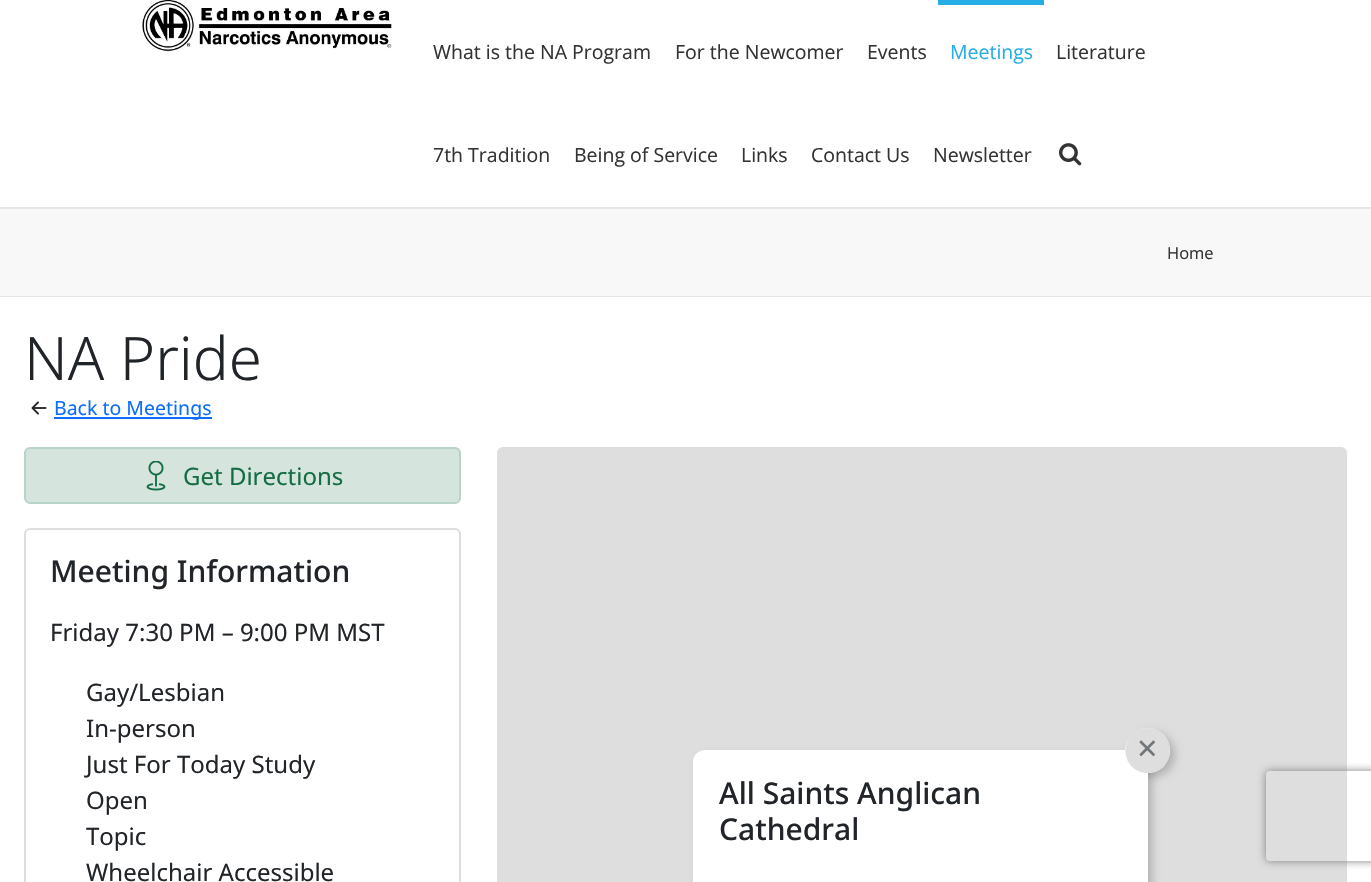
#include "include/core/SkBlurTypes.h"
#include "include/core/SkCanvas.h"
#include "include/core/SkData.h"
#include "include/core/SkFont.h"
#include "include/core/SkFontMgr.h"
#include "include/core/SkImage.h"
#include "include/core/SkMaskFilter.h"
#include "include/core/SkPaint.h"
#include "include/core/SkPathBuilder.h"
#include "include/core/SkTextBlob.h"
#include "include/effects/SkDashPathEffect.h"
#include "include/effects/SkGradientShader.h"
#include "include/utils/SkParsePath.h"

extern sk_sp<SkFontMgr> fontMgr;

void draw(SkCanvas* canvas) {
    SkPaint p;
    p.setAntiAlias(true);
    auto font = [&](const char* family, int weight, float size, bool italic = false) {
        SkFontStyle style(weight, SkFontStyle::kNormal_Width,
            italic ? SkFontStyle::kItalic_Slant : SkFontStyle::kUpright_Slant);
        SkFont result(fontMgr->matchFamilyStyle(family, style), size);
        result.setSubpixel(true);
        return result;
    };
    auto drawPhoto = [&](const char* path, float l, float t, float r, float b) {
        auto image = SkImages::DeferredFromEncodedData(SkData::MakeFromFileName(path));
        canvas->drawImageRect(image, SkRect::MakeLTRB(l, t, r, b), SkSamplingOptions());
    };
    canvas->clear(0xFFF9F8F8);
    p.setColor(0xFFFFFFFF);
    canvas->drawRect(SkRect::MakeLTRB(0, 0, 1371, 207), p);
    p.setColor(0xFFE5E5E5);
    canvas->drawRect(SkRect::MakeLTRB(0, 207, 1371, 209), p);
    drawPhoto("media/1.png", 142, 0, 392, 52);
    auto font1 = font("Open Sans", 400, 19.5f);
    p.setColor(0xFF333333);
    {
        const struct { const char* s; float x, y; } items[] = {
            {"What is the NA Program", 433, 59},
            {"For the Newcomer", 675, 59},
            {"Events", 867, 59},
        };
        for (auto [s, x, y] : items) {
            canvas->drawString(s, x, y, font1, p);
        }
    }
    p.setColor(0xFF26ADE5);
    canvas->drawRect(SkRect::MakeLTRB(938, 0, 1044, 5), p);
    canvas->drawString("Meetings", 950, 59, font1, p);
    p.setColor(0xFF333333);
    {
        const struct { const char* s; float x, y; } items[] = {
            {"Literature", 1056, 59},
            {"7th Tradition", 433, 162},
            {"Being of Service", 574, 162},
            {"Links", 741, 162},
            {"Contact Us", 811, 162},
            {"Newsletter", 933, 162},
        };
        for (auto [s, x, y] : items) {
            canvas->drawString(s, x, y, font1, p);
        }
    }
    drawPhoto("media/2.png", 1059, 143, 1082, 166);
    p.setColor(0xFFE5E5E5);
    canvas->drawRect(SkRect::MakeLTRB(0, 296, 1371, 297), p);
    auto font2 = font("Open Sans", 400, 16.5f);
    p.setColor(0xFF333333);
    canvas->drawString("Home", 1167, 259, font2, p);
    p.setColor(0xFFFFFFFF);
    canvas->drawRect(SkRect::MakeLTRB(0, 297, 1371, 882), p);
    auto font3 = font("Noto Sans", 300, 60);
    p.setColor(0xFF212529);
    canvas->drawString("NA Pride", 24, 380, font3, p);
    drawPhoto("media/3.png", 31, 401, 47, 415);
    p.setColor(0xFF0D6EFD);
    canvas->drawRect(SkRect::MakeLTRB(54, 417, 212, 419), p);
    auto font4 = font("Noto Sans", 400, 19.5f);
    canvas->drawString("Back to Meetings", 54, 415, font4, p);
    p.setColor(0xFFD5E5DD);
    canvas->drawRoundRect(SkRect::MakeLTRB(25, 448, 460, 503), 5, 5, p);
    p.setStyle(SkPaint::kStroke_Style);
    p.setStrokeWidth(2);
    p.setColor(0xFFB8D3C7);
    canvas->drawRoundRect(SkRect::MakeLTRB(25, 448, 460, 503), 5, 5, p);
    drawPhoto("media/4.png", 146, 461, 166, 491);
    auto font5 = font("Noto Sans", 400, 24);
    p.setStyle(SkPaint::kFill_Style);
    p.setColor(0xFF146C43);
    canvas->drawString("Get Directions", 183, 485, font5, p);
    p.setStyle(SkPaint::kStroke_Style);
    p.setColor(0xFFDEDEDF);
    canvas->drawRoundRect(SkRect::MakeLTRB(25, 529, 460, 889), 5, 5, p);
    auto font6 = font("Noto Sans", 500, 30);
    p.setStyle(SkPaint::kFill_Style);
    p.setColor(0xFF212529);
    canvas->drawString("Meeting Information", 50, 582, font6, p);
    {
        const struct { const char* s; float x, y; } items[] = {
            {"Friday 7:30 PM – 9:00 PM MST", 50, 641},
            {"Gay/Lesbian", 86, 701},
            {"In-person", 86, 737},
            {"Just For Today Study", 86, 773},
            {"Open", 86, 809},
            {"Topic", 86, 845},
            {"Wheelchair Accessible", 86, 881},
        };
        for (auto [s, x, y] : items) {
            canvas->drawString(s, x, y, font5, p);
        }
    }
    p.setColor(0xFFDEDEDF);
    canvas->drawRoundRect(SkRect::MakeLTRB(497, 447, 1347, 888), 6, 6, p);
    p.setColor(0x33000000);
    p.setMaskFilter(SkMaskFilter::MakeBlur(kNormal_SkBlurStyle, 4));
    canvas->drawRoundRect(SkRect::MakeLTRB(1130, 732, 1175, 777), 22.5f, 22.5f, p);
    p.setMaskFilter(nullptr);
    p.setMaskFilter(SkMaskFilter::MakeBlur(kNormal_SkBlurStyle, 4));
    canvas->drawRoundRect(SkRect::MakeLTRB(698, 755, 1152, 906), 12, 12, p);
    p.setMaskFilter(nullptr);
    p.setColor(0xFFFFFFFF);
    canvas->drawRoundRect(SkRect::MakeLTRB(693, 750, 1148, 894), 12, 12, p);
    canvas->drawCircle(1147.5f, 750.5f, 22.5f, p);
    p.setColor(0xFFDEDEDF);
    canvas->drawPath(SkPathBuilder().moveTo(1148, 728).cubicTo(1177, 728, 1177, 773, 1148, 773).cubicTo(1118, 773, 1118, 728, 1148, 728).close().detach(), p);
    auto font7 = font("Noto Sans", 400, 36);
    p.setColor(0xFF737678);
    canvas->drawString("×", 1137, 761, font7, p);
    p.setColor(0xFF212529);
    canvas->drawString("All Saints Anglican", 719, 804, font6, p);
    canvas->drawString("Cathedral", 719, 840, font6, p);
    canvas->save();
    canvas->clipPath(SkPathBuilder(SkPathFillType::kEvenOdd).moveTo(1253, 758).lineTo(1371, 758).lineTo(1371, 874).lineTo(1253, 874).close().moveTo(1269, 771).lineTo(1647, 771).cubicTo(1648.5f, 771, 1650, 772.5f, 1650, 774).lineTo(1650, 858).cubicTo(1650, 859.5f, 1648.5f, 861, 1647, 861).lineTo(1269, 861).cubicTo(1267.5f, 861, 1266, 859.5f, 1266, 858).lineTo(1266, 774).cubicTo(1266, 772.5f, 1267.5f, 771, 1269, 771).close().detach(), true);
    p.setColor(0xFF808080);
    p.setMaskFilter(SkMaskFilter::MakeBlur(kNormal_SkBlurStyle, 4));
    canvas->drawRoundRect(SkRect::MakeLTRB(1266, 771, 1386, 861), 3, 3, p);
    p.setMaskFilter(nullptr);
    canvas->restore();
}
